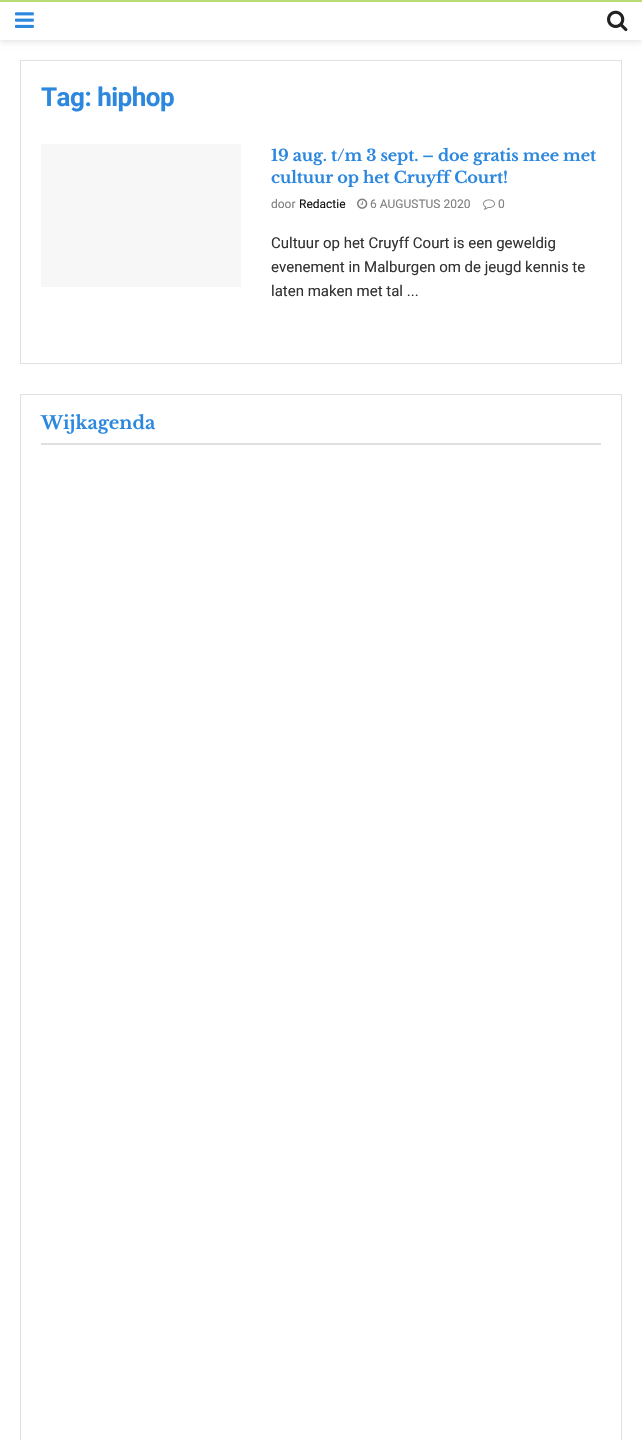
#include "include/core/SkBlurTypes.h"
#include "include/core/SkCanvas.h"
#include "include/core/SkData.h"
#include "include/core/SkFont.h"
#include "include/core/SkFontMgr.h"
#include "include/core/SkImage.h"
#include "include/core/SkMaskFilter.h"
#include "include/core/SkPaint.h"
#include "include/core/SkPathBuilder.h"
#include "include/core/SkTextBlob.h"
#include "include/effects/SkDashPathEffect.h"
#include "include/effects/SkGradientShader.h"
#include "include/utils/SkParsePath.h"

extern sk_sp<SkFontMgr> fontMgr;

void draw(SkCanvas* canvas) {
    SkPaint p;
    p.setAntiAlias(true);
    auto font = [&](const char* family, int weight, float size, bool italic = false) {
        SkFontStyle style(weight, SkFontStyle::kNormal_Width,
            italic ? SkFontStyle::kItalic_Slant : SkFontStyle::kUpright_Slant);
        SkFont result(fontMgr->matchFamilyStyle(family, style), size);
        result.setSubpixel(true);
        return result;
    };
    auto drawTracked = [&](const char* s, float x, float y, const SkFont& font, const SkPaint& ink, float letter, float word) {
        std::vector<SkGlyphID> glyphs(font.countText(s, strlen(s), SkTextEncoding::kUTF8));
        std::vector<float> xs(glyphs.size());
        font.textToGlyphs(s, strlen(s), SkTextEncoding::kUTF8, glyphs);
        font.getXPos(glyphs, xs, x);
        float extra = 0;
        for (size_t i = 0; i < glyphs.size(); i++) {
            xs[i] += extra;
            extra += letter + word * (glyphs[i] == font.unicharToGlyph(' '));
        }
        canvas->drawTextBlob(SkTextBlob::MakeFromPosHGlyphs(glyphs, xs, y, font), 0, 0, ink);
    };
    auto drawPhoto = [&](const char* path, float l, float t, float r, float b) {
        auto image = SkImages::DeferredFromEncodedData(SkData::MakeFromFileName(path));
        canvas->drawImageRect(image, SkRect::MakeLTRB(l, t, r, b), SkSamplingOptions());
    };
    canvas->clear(0xFFFFFFFF);
    p.setColor(0x1A000000);
    p.setMaskFilter(SkMaskFilter::MakeBlur(kNormal_SkBlurStyle, 3));
    canvas->drawRect(SkRect::MakeLTRB(0, 2, 642, 42), p);
    p.setMaskFilter(nullptr);
    p.setColor(0xFFFFFFFF);
    canvas->drawRect(SkRect::MakeLTRB(0, 2, 642, 40), p);
    p.setColor(0xFFB9DB75);
    canvas->drawRect(SkRect::MakeLTRB(0, 0, 642, 2), p);
    drawPhoto("media/1.png", 15, 12, 34, 28);
    drawPhoto("media/2.png", 607, 10, 628, 32);
    p.setStyle(SkPaint::kStroke_Style);
    p.setStrokeWidth(1);
    p.setColor(0xFFE0E0E0);
    canvas->drawRect(SkRect::MakeLTRB(20.5f, 60.5f, 621.5f, 363.5f), p);
    auto font1 = font("Roboto", 700, 26);
    p.setStyle(SkPaint::kFill_Style);
    p.setColor(0xFF2C88DF);
    drawTracked("Tag: hiphop", 41, 106, font1, p, -0.5f, 0);
    p.setColor(0xFFF7F7F7);
    canvas->drawRect(SkRect::MakeLTRB(41, 144, 241, 287), p);
    auto font2 = font("Libre Baskerville", 700, 16);
    p.setColor(0xFF2C88DF);
    drawTracked("19 aug. t/m 3 sept. – doe gratis mee met", 271, 161, font2, p, -0.1f, 0);
    drawTracked("cultuur op het Cruyff Court!", 271, 183, font2, p, -0.1f, 0);
    auto font3 = font("Roboto", 400, 12);
    p.setColor(0xFF808080);
    canvas->drawString("door", 271, 208, font3, p);
    p.setColor(0xFF111111);
    canvas->drawString("Redactie", 299, 208, font3, p);
    drawPhoto("media/3.png", 357, 198, 368, 209);
    p.setColor(0xFF808080);
    canvas->drawString("6 AUGUSTUS 2020", 370, 208, font3, p);
    drawPhoto("media/4.png", 483, 199, 495, 210);
    canvas->drawString("0", 498, 208, font3, p);
    auto font4 = font("Roboto", 400, 15);
    p.setColor(0xFF333333);
    {
        const struct { const char* s; float x, y; } items[] = {
            {"Cultuur op het Cruyff Court is een geweldig", 271, 248},
            {"evenement in Malburgen om de jeugd kennis te", 271, 272},
            {"laten maken met tal ...", 271, 296},
        };
        for (auto [s, x, y] : items) {
            canvas->drawString(s, x, y, font4, p);
        }
    }
    p.setStyle(SkPaint::kStroke_Style);
    p.setColor(0xFFE0E0E0);
    canvas->drawRect(SkRect::MakeLTRB(20.5f, 394.5f, 621.5f, 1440.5f), p);
    p.setStyle(SkPaint::kFill_Style);
    canvas->drawRect(SkRect::MakeLTRB(41, 443, 601, 445), p);
    auto font5 = font("Libre Baskerville", 700, 18);
    p.setColor(0xFF2C88DF);
    canvas->drawString("Wijkagenda", 41, 429, font5, p);
}
